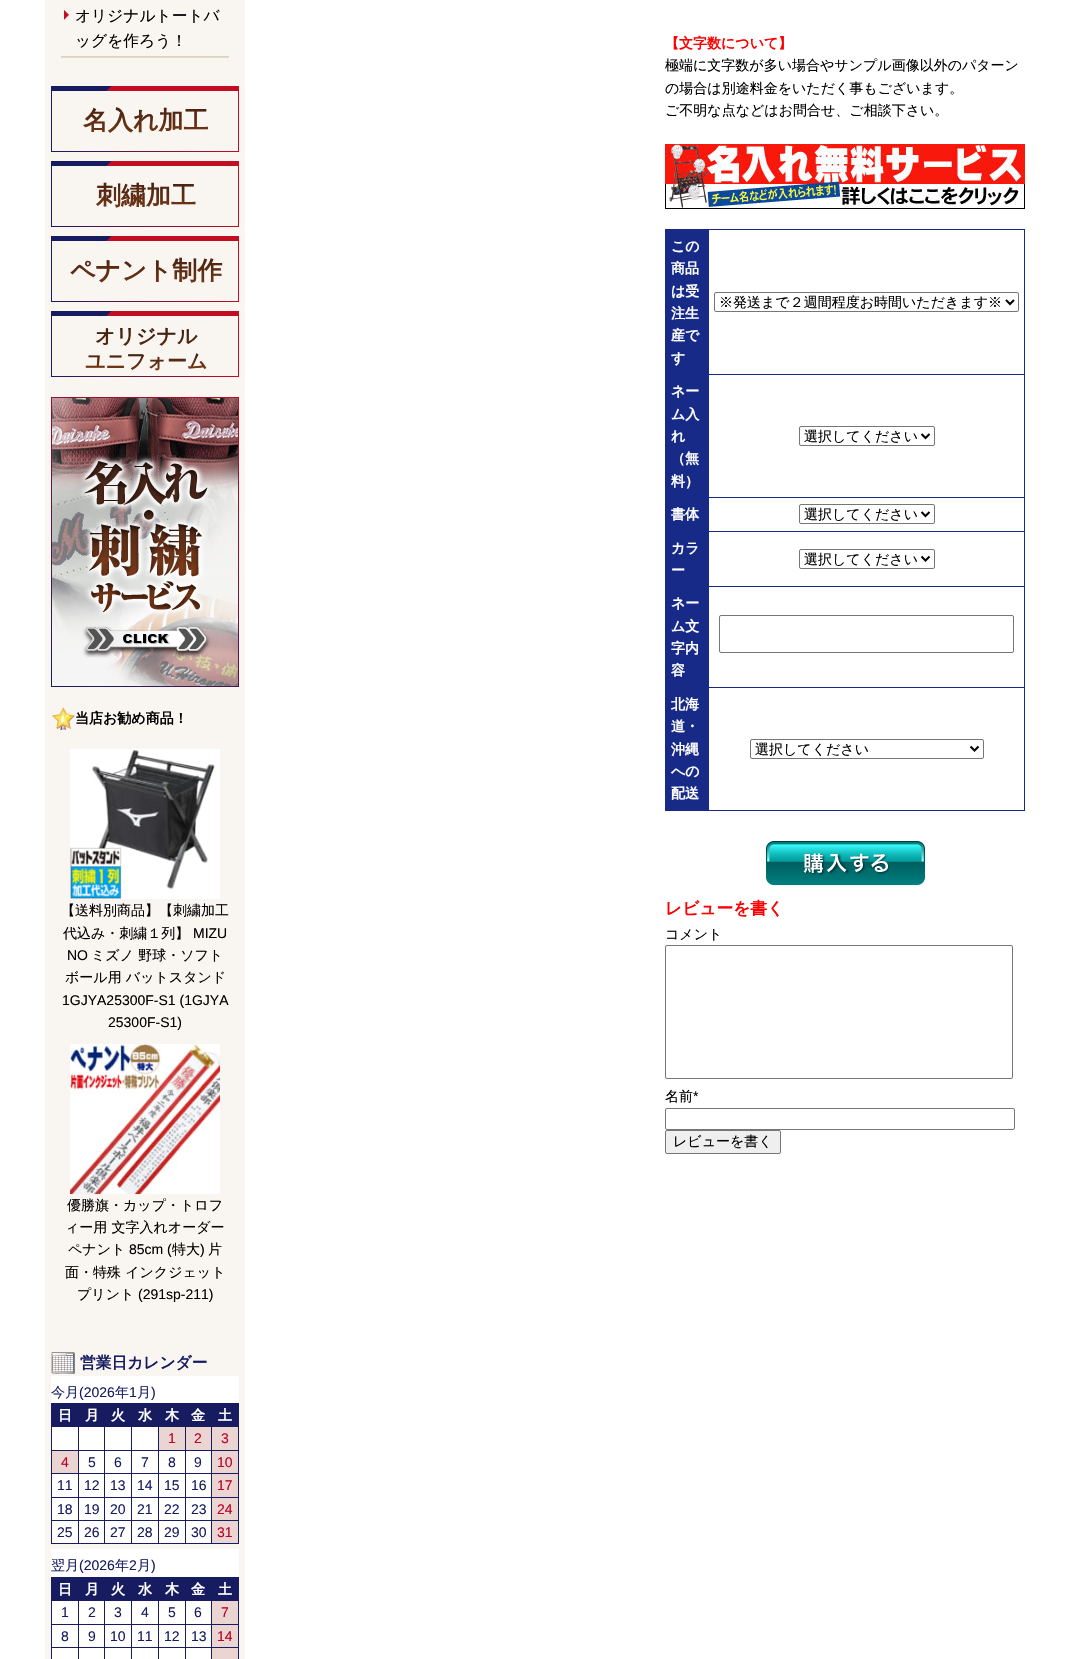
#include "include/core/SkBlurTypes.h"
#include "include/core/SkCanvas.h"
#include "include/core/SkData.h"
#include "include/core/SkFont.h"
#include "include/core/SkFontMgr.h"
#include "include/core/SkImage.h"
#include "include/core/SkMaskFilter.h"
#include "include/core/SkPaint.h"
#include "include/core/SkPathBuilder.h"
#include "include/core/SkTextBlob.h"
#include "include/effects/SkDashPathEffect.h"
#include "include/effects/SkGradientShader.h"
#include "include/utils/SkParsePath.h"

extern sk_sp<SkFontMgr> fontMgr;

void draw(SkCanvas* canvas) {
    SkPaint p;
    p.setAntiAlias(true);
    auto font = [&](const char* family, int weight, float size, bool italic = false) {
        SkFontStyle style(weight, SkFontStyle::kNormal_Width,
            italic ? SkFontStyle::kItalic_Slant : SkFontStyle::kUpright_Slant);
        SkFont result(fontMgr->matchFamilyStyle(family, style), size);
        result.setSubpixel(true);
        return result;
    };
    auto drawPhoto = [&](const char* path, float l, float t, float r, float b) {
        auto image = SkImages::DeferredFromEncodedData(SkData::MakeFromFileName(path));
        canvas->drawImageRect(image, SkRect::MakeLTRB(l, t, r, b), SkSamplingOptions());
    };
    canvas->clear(0xFFFFFFFF);
    p.setColor(0xFFF9F5F0);
    canvas->drawRect(SkRect::MakeLTRB(45, 0, 245, 1659), p);
    p.setColor(0xFFE2DACB);
    canvas->drawRect(SkRect::MakeLTRB(61, 57, 229, 58), p);
    drawPhoto("media/1.png", 64, 10, 69, 20);
    p.setColor(0xFFDBD2BD);
    canvas->drawRect(SkRect::MakeLTRB(61, 56, 229, 57), p);
    auto font1 = font("WenQuanYi Zen Hei", 500, 15.75f);
    p.setColor(0xFF000000);
    canvas->drawString("オリジナルトートバ", 75, 21, font1, p);
    canvas->drawString("ッグを作ろう！", 75, 46, font1, p);
    drawPhoto("media/2.png", 51, 91, 239, 152);
    p.setColor(0xFF171C61);
    canvas->drawRect(SkRect::MakeLTRB(51, 86, 82, 91), p);
    p.setColor(0xFFC30D23);
    canvas->drawRect(SkRect::MakeLTRB(106, 86, 239, 91), p);
    p.setColor(0xFF171C61);
    canvas->drawPath(SkPathBuilder().moveTo(81.5f, 86).lineTo(111.5f, 86).lineTo(106.5f, 91).lineTo(76.5f, 91).close().detach(), p);
    auto font2 = font("WenQuanYi Zen Hei", 700, 25);
    {
        const SkColor colors[] = {0xFF8C421A, 0xFF27140D};
        const float stops[] = {0, 1};
        const SkPoint ends[] = {{146, 151}, {146, 86}};
        p.setShader(SkGradientShader::MakeLinear(ends, colors, stops, 2, SkTileMode::kClamp));
        p.setAlpha(255);
    }
    canvas->drawString("名入れ加工", 83, 129, font2, p);
    drawPhoto("media/3.png", 51, 166, 239, 227);
    p.setShader(nullptr);
    p.setColor(0xFF171C61);
    canvas->drawRect(SkRect::MakeLTRB(51, 161, 82, 166), p);
    p.setColor(0xFFC30D23);
    canvas->drawRect(SkRect::MakeLTRB(106, 161, 239, 166), p);
    p.setColor(0xFF171C61);
    canvas->drawPath(SkPathBuilder().moveTo(81.5f, 161).lineTo(111.5f, 161).lineTo(106.5f, 166).lineTo(76.5f, 166).close().detach(), p);
    {
        const SkColor colors[] = {0xFF8C421A, 0xFF27140D};
        const float stops[] = {0, 1};
        const SkPoint ends[] = {{146, 226}, {146, 161}};
        p.setShader(SkGradientShader::MakeLinear(ends, colors, stops, 2, SkTileMode::kClamp));
        p.setAlpha(255);
    }
    canvas->drawString("刺繍加工", 96, 204, font2, p);
    drawPhoto("media/2.png", 51, 241, 239, 302);
    p.setShader(nullptr);
    p.setColor(0xFF171C61);
    canvas->drawRect(SkRect::MakeLTRB(51, 236, 82, 241), p);
    p.setColor(0xFFC30D23);
    canvas->drawRect(SkRect::MakeLTRB(106, 236, 239, 241), p);
    p.setColor(0xFF171C61);
    canvas->drawPath(SkPathBuilder().moveTo(81.5f, 236).lineTo(111.5f, 236).lineTo(106.5f, 241).lineTo(76.5f, 241).close().detach(), p);
    {
        const SkColor colors[] = {0xFF8C421A, 0xFF27140D};
        const float stops[] = {0, 1};
        const SkPoint ends[] = {{146, 301}, {146, 236}};
        p.setShader(SkGradientShader::MakeLinear(ends, colors, stops, 2, SkTileMode::kClamp));
        p.setAlpha(255);
    }
    canvas->drawString("ペナント制作", 70, 279, font2, p);
    drawPhoto("media/4.png", 51, 316, 239, 377);
    p.setShader(nullptr);
    p.setColor(0xFF171C61);
    canvas->drawRect(SkRect::MakeLTRB(51, 311, 82, 316), p);
    p.setColor(0xFFC30D23);
    canvas->drawRect(SkRect::MakeLTRB(106, 311, 239, 316), p);
    p.setColor(0xFF171C61);
    canvas->drawPath(SkPathBuilder().moveTo(81.5f, 311).lineTo(111.5f, 311).lineTo(106.5f, 316).lineTo(76.5f, 316).close().detach(), p);
    auto font3 = font("WenQuanYi Zen Hei", 700, 20);
    {
        const SkColor colors[] = {0xFF8C421A, 0xFF27140D};
        const float stops[] = {0, 1};
        const SkPoint ends[] = {{146, 376}, {146, 316}};
        p.setShader(SkGradientShader::MakeLinear(ends, colors, stops, 2, SkTileMode::kClamp));
        p.setAlpha(255);
    }
    canvas->drawString("オリジナル", 95, 343, font3, p);
    {
        const SkColor colors[] = {0xFF8C421A, 0xFF27140D};
        const float stops[] = {0, 1};
        const SkPoint ends[] = {{146, 376}, {146, 346}};
        p.setShader(SkGradientShader::MakeLinear(ends, colors, stops, 2, SkTileMode::kClamp));
        p.setAlpha(255);
    }
    canvas->drawString("ユニフォーム", 85, 368, font3, p);
    drawPhoto("media/5.png", 51, 397, 239, 687);
    drawPhoto("media/6.png", 52, 707, 75, 730);
    auto font4 = font("WenQuanYi Zen Hei", 700, 14);
    p.setShader(nullptr);
    p.setColor(0xFF000000);
    canvas->drawString("当店お勧め商品！", 75, 723, font4, p);
    drawPhoto("media/7.png", 70, 749, 220, 899);
    auto font5 = font("WenQuanYi Zen Hei", 500, 14);
    canvas->drawString("【送料別商品】【刺繍加工", 61, 915, font5, p);
    canvas->drawString("代込み・刺繍１列】", 63, 938, font5, p);
    auto font6 = font("Liberation Sans", 400, 14);
    canvas->drawString("MIZU", 193, 938, font6, p);
    canvas->drawString("NO", 67, 960, font6, p);
    canvas->drawString("ミズノ 野球・ソフト", 91, 960, font5, p);
    canvas->drawString("ボール用 バットスタンド", 65, 982, font5, p);
    canvas->drawString("1GJYA25300F-S1 (1GJYA", 62, 1005, font6, p);
    canvas->drawString("25300F-S1)", 108, 1027, font6, p);
    drawPhoto("media/8.png", 70, 1044, 220, 1194);
    {
        const struct { const char* s; float x, y; } items[] = {
            {"優勝旗・カップ・トロフ", 67, 1210},
            {"ィー用 文字入れオーダー", 65, 1232},
            {"ペナント", 68, 1254},
        };
        for (auto [s, x, y] : items) {
            canvas->drawString(s, x, y, font5, p);
        }
    }
    canvas->drawString("85cm (", 129, 1254, font6, p);
    canvas->drawString("特大", 172, 1254, font5, p);
    canvas->drawString(")", 200, 1254, font6, p);
    {
        const struct { const char* s; float x, y; } items[] = {
            {"片", 208, 1254},
            {"面・特殊 インクジェット", 65, 1277},
            {"プリント", 77, 1299},
        };
        for (auto [s, x, y] : items) {
            canvas->drawString(s, x, y, font5, p);
        }
    }
    canvas->drawString("(291sp-211)", 138, 1299, font6, p);
    drawPhoto("media/9.png", 51, 1352, 75, 1374);
    auto font7 = font("WenQuanYi Zen Hei", 700, 15.75f);
    p.setColor(0xFF171C61);
    canvas->drawString("営業日カレンダー", 80, 1368, font7, p);
    p.setColor(0xFFFFFFFF);
    canvas->drawRect(SkRect::MakeLTRB(51, 1376, 239, 1543), p);
    p.setColor(0xFF171C61);
    canvas->drawString("今月", 51, 1397, font5, p);
    canvas->drawString("(2026", 79, 1397, font6, p);
    canvas->drawString("年", 115, 1397, font5, p);
    canvas->drawString("1", 129, 1397, font6, p);
    canvas->drawString("月", 137, 1397, font5, p);
    canvas->drawString(")", 151, 1397, font6, p);
    {
        const struct { float l, t, r, b; SkColor color; } items[] = {
            {52, 1404, 239, 1427, 0xFF171C61},
            {51, 1403, 239, 1404, 0xFF171C61},
            {211, 1450, 239, 1451, 0xFF171C61},
            {211, 1473, 239, 1474, 0xFF171C61},
            {211, 1497, 239, 1498, 0xFF171C61},
            {211, 1520, 239, 1521, 0xFF171C61},
            {238, 1520, 239, 1544, 0xFF171C61},
            {211, 1543, 239, 1544, 0xFF171C61},
            {211, 1520, 212, 1544, 0xFF171C61},
            {185, 1520, 212, 1521, 0xFF171C61},
            {211, 1497, 212, 1521, 0xFF171C61},
            {185, 1497, 212, 1498, 0xFF171C61},
            {211, 1473, 212, 1498, 0xFF171C61},
            {185, 1473, 212, 1474, 0xFF171C61},
            {211, 1450, 212, 1474, 0xFF171C61},
            {185, 1450, 212, 1451, 0xFF171C61},
            {185, 1543, 212, 1544, 0xFF171C61},
            {185, 1520, 186, 1544, 0xFF171C61},
            {158, 1520, 186, 1521, 0xFF171C61},
            {185, 1497, 186, 1521, 0xFF171C61},
            {158, 1497, 186, 1498, 0xFF171C61},
            {185, 1473, 186, 1498, 0xFF171C61},
            {158, 1473, 186, 1474, 0xFF171C61},
            {185, 1450, 186, 1474, 0xFF171C61},
            {158, 1450, 186, 1451, 0xFF171C61},
            {158, 1543, 186, 1544, 0xFF171C61},
            {158, 1520, 159, 1544, 0xFF171C61},
            {131, 1520, 159, 1521, 0xFF171C61},
            {158, 1497, 159, 1521, 0xFF171C61},
            {131, 1497, 159, 1498, 0xFF171C61},
            {158, 1473, 159, 1498, 0xFF171C61},
            {131, 1473, 159, 1474, 0xFF171C61},
            {158, 1450, 159, 1474, 0xFF171C61},
            {131, 1450, 159, 1451, 0xFF171C61},
            {131, 1543, 159, 1544, 0xFF171C61},
            {131, 1520, 132, 1544, 0xFF171C61},
            {104, 1520, 132, 1521, 0xFF171C61},
            {131, 1497, 132, 1521, 0xFF171C61},
            {104, 1497, 132, 1498, 0xFF171C61},
            {131, 1473, 132, 1498, 0xFF171C61},
            {104, 1473, 132, 1474, 0xFF171C61},
            {131, 1450, 132, 1474, 0xFF171C61},
            {104, 1450, 132, 1451, 0xFF171C61},
            {104, 1543, 132, 1544, 0xFF171C61},
            {104, 1520, 105, 1544, 0xFF171C61},
            {78, 1520, 105, 1521, 0xFF171C61},
            {104, 1497, 105, 1521, 0xFF171C61},
            {78, 1497, 105, 1498, 0xFF171C61},
            {104, 1473, 105, 1498, 0xFF171C61},
            {78, 1473, 105, 1474, 0xFF171C61},
            {104, 1450, 105, 1474, 0xFF171C61},
            {78, 1450, 105, 1451, 0xFF171C61},
            {78, 1543, 105, 1544, 0xFF171C61},
            {78, 1520, 79, 1544, 0xFF171C61},
            {51, 1520, 79, 1521, 0xFF171C61},
            {78, 1497, 79, 1521, 0xFF171C61},
            {51, 1497, 79, 1498, 0xFF171C61},
            {78, 1473, 79, 1498, 0xFF171C61},
            {51, 1473, 79, 1474, 0xFF171C61},
            {78, 1450, 79, 1474, 0xFF171C61},
            {51, 1450, 79, 1451, 0xFF171C61},
            {51, 1543, 79, 1544, 0xFF171C61},
            {51, 1520, 52, 1544, 0xFF171C61},
            {51, 1497, 52, 1521, 0xFF171C61},
            {51, 1473, 52, 1498, 0xFF171C61},
            {51, 1450, 52, 1474, 0xFF171C61},
            {51, 1426, 52, 1451, 0xFF171C61},
            {51, 1403, 52, 1427, 0xFF171C61},
        };
        for (auto [l, t, r, b, color] : items) {
            p.setColor(color);
            canvas->drawRect(SkRect::MakeLTRB(l, t, r, b), p);
        }
    }
    p.setColor(0xFFFFFFFF);
    {
        const struct { const char* s; float x, y; } items[] = {
            {"日", 58, 1420},
            {"月", 85, 1420},
            {"火", 111, 1420},
            {"水", 138, 1420},
            {"木", 165, 1420},
            {"金", 191, 1420},
            {"土", 218, 1420},
        };
        for (auto [s, x, y] : items) {
            canvas->drawString(s, x, y, font4, p);
        }
    }
    {
        const struct { float l, t, r, b; SkColor color; } items[] = {
            {78, 1426, 79, 1451, 0xFF171C61},
            {104, 1426, 105, 1451, 0xFF171C61},
            {131, 1426, 132, 1451, 0xFF171C61},
            {159, 1427, 185, 1450, 0xFFEAD5D3},
            {158, 1426, 159, 1451, 0xFF171C61},
        };
        for (auto [l, t, r, b, color] : items) {
            p.setColor(color);
            canvas->drawRect(SkRect::MakeLTRB(l, t, r, b), p);
        }
    }
    p.setColor(0xFFBE0027);
    canvas->drawString("1", 168, 1443, font6, p);
    p.setColor(0xFFEAD5D3);
    canvas->drawRect(SkRect::MakeLTRB(186, 1427, 211, 1450), p);
    p.setColor(0xFF171C61);
    canvas->drawRect(SkRect::MakeLTRB(185, 1426, 186, 1451), p);
    p.setColor(0xFFBE0027);
    canvas->drawString("2", 194, 1443, font6, p);
    p.setColor(0xFFEAD5D3);
    canvas->drawRect(SkRect::MakeLTRB(212, 1427, 238, 1450), p);
    p.setColor(0xFF171C61);
    canvas->drawRect(SkRect::MakeLTRB(211, 1426, 212, 1451), p);
    p.setColor(0xFFBE0027);
    canvas->drawString("3", 221, 1443, font6, p);
    p.setColor(0xFFEAD5D3);
    canvas->drawRect(SkRect::MakeLTRB(52, 1451, 78, 1473), p);
    p.setColor(0xFFBE0027);
    canvas->drawString("4", 61, 1467, font6, p);
    p.setColor(0xFF171C61);
    {
        const struct { const char* s; float x, y; } items[] = {
            {"5", 88, 1467},
            {"6", 114, 1467},
            {"7", 141, 1467},
            {"8", 168, 1467},
            {"9", 194, 1467},
        };
        for (auto [s, x, y] : items) {
            canvas->drawString(s, x, y, font6, p);
        }
    }
    {
        const struct { float l, t, r, b; SkColor color; } items[] = {
            {212, 1451, 238, 1473, 0xFFEAD5D3},
            {238, 1497, 239, 1521, 0xFF171C61},
            {238, 1473, 239, 1498, 0xFF171C61},
            {238, 1426, 239, 1474, 0xFF171C61},
        };
        for (auto [l, t, r, b, color] : items) {
            p.setColor(color);
            canvas->drawRect(SkRect::MakeLTRB(l, t, r, b), p);
        }
    }
    p.setColor(0xFFBE0027);
    canvas->drawString("10", 217, 1467, font6, p);
    p.setColor(0xFF171C61);
    {
        const struct { const char* s; float x, y; } items[] = {
            {"11", 57, 1490},
            {"12", 84, 1490},
            {"13", 110, 1490},
            {"14", 137, 1490},
            {"15", 164, 1490},
            {"16", 191, 1490},
        };
        for (auto [s, x, y] : items) {
            canvas->drawString(s, x, y, font6, p);
        }
    }
    p.setColor(0xFFEAD5D3);
    canvas->drawRect(SkRect::MakeLTRB(212, 1474, 238, 1497), p);
    p.setColor(0xFFBE0027);
    canvas->drawString("17", 217, 1490, font6, p);
    p.setColor(0xFF171C61);
    {
        const struct { const char* s; float x, y; } items[] = {
            {"18", 57, 1514},
            {"19", 84, 1514},
            {"20", 110, 1514},
            {"21", 137, 1514},
            {"22", 164, 1514},
            {"23", 191, 1514},
        };
        for (auto [s, x, y] : items) {
            canvas->drawString(s, x, y, font6, p);
        }
    }
    p.setColor(0xFFEAD5D3);
    canvas->drawRect(SkRect::MakeLTRB(212, 1498, 238, 1520), p);
    p.setColor(0xFFBE0027);
    canvas->drawString("24", 217, 1514, font6, p);
    p.setColor(0xFF171C61);
    {
        const struct { const char* s; float x, y; } items[] = {
            {"25", 57, 1537},
            {"26", 84, 1537},
            {"27", 110, 1537},
            {"28", 137, 1537},
            {"29", 164, 1537},
            {"30", 191, 1537},
        };
        for (auto [s, x, y] : items) {
            canvas->drawString(s, x, y, font6, p);
        }
    }
    p.setColor(0xFFEAD5D3);
    canvas->drawRect(SkRect::MakeLTRB(212, 1521, 238, 1543), p);
    p.setColor(0xFFBE0027);
    canvas->drawString("31", 217, 1537, font6, p);
    p.setColor(0xFFFFFFFF);
    canvas->drawRect(SkRect::MakeLTRB(51, 1549, 239, 1659), p);
    p.setColor(0xFF171C61);
    canvas->drawString("翌月", 51, 1570, font5, p);
    canvas->drawString("(2026", 79, 1570, font6, p);
    canvas->drawString("年", 115, 1570, font5, p);
    canvas->drawString("2", 129, 1570, font6, p);
    canvas->drawString("月", 137, 1570, font5, p);
    canvas->drawString(")", 151, 1570, font6, p);
    {
        const struct { float l, t, r, b; SkColor color; } items[] = {
            {52, 1577, 239, 1601, 0xFF171C61},
            {211, 1624, 239, 1625, 0xFF171C61},
            {211, 1647, 239, 1648, 0xFF171C61},
            {211, 1647, 212, 1659, 0xFF171C61},
            {185, 1647, 212, 1648, 0xFF171C61},
            {211, 1624, 212, 1648, 0xFF171C61},
            {185, 1624, 212, 1625, 0xFF171C61},
            {185, 1647, 186, 1659, 0xFF171C61},
            {158, 1647, 186, 1648, 0xFF171C61},
            {185, 1624, 186, 1648, 0xFF171C61},
            {158, 1624, 186, 1625, 0xFF171C61},
            {158, 1647, 159, 1659, 0xFF171C61},
            {131, 1647, 159, 1648, 0xFF171C61},
            {158, 1624, 159, 1648, 0xFF171C61},
            {131, 1624, 159, 1625, 0xFF171C61},
            {131, 1647, 132, 1659, 0xFF171C61},
            {104, 1647, 132, 1648, 0xFF171C61},
            {131, 1624, 132, 1648, 0xFF171C61},
            {104, 1624, 132, 1625, 0xFF171C61},
            {104, 1647, 105, 1659, 0xFF171C61},
            {78, 1647, 105, 1648, 0xFF171C61},
            {104, 1624, 105, 1648, 0xFF171C61},
            {78, 1624, 105, 1625, 0xFF171C61},
            {78, 1647, 79, 1659, 0xFF171C61},
            {51, 1647, 79, 1648, 0xFF171C61},
            {78, 1624, 79, 1648, 0xFF171C61},
            {51, 1624, 79, 1625, 0xFF171C61},
            {51, 1647, 52, 1659, 0xFF171C61},
            {51, 1624, 52, 1648, 0xFF171C61},
            {51, 1600, 52, 1625, 0xFF171C61},
            {51, 1577, 52, 1601, 0xFF171C61},
        };
        for (auto [l, t, r, b, color] : items) {
            p.setColor(color);
            canvas->drawRect(SkRect::MakeLTRB(l, t, r, b), p);
        }
    }
    p.setColor(0xFFFFFFFF);
    {
        const struct { const char* s; float x, y; } items[] = {
            {"日", 58, 1594},
            {"月", 85, 1594},
            {"火", 111, 1594},
            {"水", 138, 1594},
            {"木", 165, 1594},
            {"金", 191, 1594},
            {"土", 218, 1594},
        };
        for (auto [s, x, y] : items) {
            canvas->drawString(s, x, y, font4, p);
        }
    }
    p.setColor(0xFF171C61);
    canvas->drawString("1", 61, 1617, font6, p);
    canvas->drawRect(SkRect::MakeLTRB(78, 1600, 79, 1625), p);
    canvas->drawString("2", 88, 1617, font6, p);
    canvas->drawRect(SkRect::MakeLTRB(104, 1600, 105, 1625), p);
    canvas->drawString("3", 114, 1617, font6, p);
    canvas->drawRect(SkRect::MakeLTRB(131, 1600, 132, 1625), p);
    canvas->drawString("4", 141, 1617, font6, p);
    canvas->drawRect(SkRect::MakeLTRB(158, 1600, 159, 1625), p);
    canvas->drawString("5", 168, 1617, font6, p);
    canvas->drawRect(SkRect::MakeLTRB(185, 1600, 186, 1625), p);
    canvas->drawString("6", 194, 1617, font6, p);
    p.setColor(0xFFEAD5D3);
    canvas->drawRect(SkRect::MakeLTRB(212, 1601, 238, 1624), p);
    p.setColor(0xFF171C61);
    canvas->drawRect(SkRect::MakeLTRB(211, 1600, 212, 1625), p);
    p.setColor(0xFFBE0027);
    canvas->drawString("7", 221, 1617, font6, p);
    p.setColor(0xFF171C61);
    {
        const struct { const char* s; float x, y; } items[] = {
            {"8", 61, 1641},
            {"9", 88, 1641},
            {"10", 110, 1641},
            {"11", 137, 1641},
            {"12", 164, 1641},
            {"13", 191, 1641},
        };
        for (auto [s, x, y] : items) {
            canvas->drawString(s, x, y, font6, p);
        }
    }
    {
        const struct { float l, t, r, b; SkColor color; } items[] = {
            {212, 1625, 238, 1647, 0xFFEAD5D3},
            {238, 1647, 239, 1659, 0xFF171C61},
            {238, 1600, 239, 1648, 0xFF171C61},
        };
        for (auto [l, t, r, b, color] : items) {
            p.setColor(color);
            canvas->drawRect(SkRect::MakeLTRB(l, t, r, b), p);
        }
    }
    p.setColor(0xFFBE0027);
    canvas->drawString("14", 217, 1641, font6, p);
    p.setColor(0xFFEAD5D3);
    canvas->drawRect(SkRect::MakeLTRB(212, 1648, 238, 1659), p);
    p.setColor(0xFFFF0000);
    canvas->drawString("【文字数について】", 665, 48, font4, p);
    p.setColor(0xFF000000);
    {
        const struct { const char* s; float x, y; } items[] = {
            {"極端に文字数が多い場合やサンプル画像以外のパターン", 665, 70},
            {"の場合は別途料金をいただく事もございます。", 665, 93},
            {"ご不明な点などはお問合せ、ご相談下さい。", 665, 115},
        };
        for (auto [s, x, y] : items) {
            canvas->drawString(s, x, y, font5, p);
        }
    }
    drawPhoto("media/10.png", 665, 144, 1025, 209);
    {
        const struct { float l, t, r, b; SkColor color; } items[] = {
            {666, 230, 709, 374, 0xFF172A88},
            {665, 229, 1025, 230, 0xFF172A88},
            {665, 374, 1025, 375, 0xFF172A88},
            {665, 497, 1025, 498, 0xFF172A88},
            {665, 531, 1025, 532, 0xFF172A88},
            {665, 586, 1025, 587, 0xFF172A88},
            {665, 687, 1025, 688, 0xFF172A88},
            {1024, 687, 1025, 811, 0xFF172A88},
            {665, 810, 1025, 811, 0xFF172A88},
            {665, 687, 666, 811, 0xFF172A88},
            {665, 586, 666, 688, 0xFF172A88},
            {665, 531, 666, 587, 0xFF172A88},
            {665, 497, 666, 532, 0xFF172A88},
            {665, 374, 666, 498, 0xFF172A88},
            {665, 229, 666, 375, 0xFF172A88},
        };
        for (auto [l, t, r, b, color] : items) {
            p.setColor(color);
            canvas->drawRect(SkRect::MakeLTRB(l, t, r, b), p);
        }
    }
    p.setColor(0xFFFFFFFF);
    {
        const struct { const char* s; float x, y; } items[] = {
            {"この", 671, 251},
            {"商品", 671, 273},
            {"は受", 671, 296},
            {"注生", 671, 318},
            {"産で", 671, 340},
            {"す", 671, 363},
        };
        for (auto [s, x, y] : items) {
            canvas->drawString(s, x, y, font4, p);
        }
    }
    {
        const struct { float l, t, r, b; SkColor color; } items[] = {
            {1024, 586, 1025, 688, 0xFF172A88},
            {1024, 531, 1025, 587, 0xFF172A88},
            {1024, 497, 1025, 532, 0xFF172A88},
            {1024, 374, 1025, 498, 0xFF172A88},
            {1024, 229, 1025, 375, 0xFF172A88},
        };
        for (auto [l, t, r, b, color] : items) {
            p.setColor(color);
            canvas->drawRect(SkRect::MakeLTRB(l, t, r, b), p);
        }
    }
    p.setStyle(SkPaint::kStroke_Style);
    p.setStrokeWidth(1);
    p.setColor(0xFF767676);
    canvas->drawRoundRect(SkRect::MakeLTRB(714.5f, 292.5f, 1018.5f, 311.5f), 1.5f, 1.5f, p);
    p.setStrokeWidth(2);
    p.setColor(0xFF000000);
    canvas->drawPath(SkPathBuilder().moveTo(1006, 300).lineTo(1010, 304).lineTo(1014, 300).detach(), p);
    p.setStyle(SkPaint::kFill_Style);
    canvas->drawString("※発送まで２週間程度お時間いただきます※", 719, 307, font5, p);
    p.setColor(0xFF172A88);
    canvas->drawRect(SkRect::MakeLTRB(666, 375, 709, 497), p);
    p.setColor(0xFFFFFFFF);
    {
        const struct { const char* s; float x, y; } items[] = {
            {"ネー", 671, 396},
            {"ム入", 671, 419},
            {"れ", 671, 441},
            {"（無", 671, 463},
            {"料）", 671, 486},
        };
        for (auto [s, x, y] : items) {
            canvas->drawString(s, x, y, font4, p);
        }
    }
    p.setStyle(SkPaint::kStroke_Style);
    p.setStrokeWidth(1);
    p.setColor(0xFF767676);
    canvas->drawRoundRect(SkRect::MakeLTRB(799.5f, 426.5f, 934.5f, 445.5f), 1.5f, 1.5f, p);
    p.setStrokeWidth(2);
    p.setColor(0xFF000000);
    canvas->drawPath(SkPathBuilder().moveTo(921.5f, 434).lineTo(925.5f, 438).lineTo(929.5f, 434).detach(), p);
    p.setStyle(SkPaint::kFill_Style);
    canvas->drawString("選択してください", 804, 441, font5, p);
    p.setColor(0xFF172A88);
    canvas->drawRect(SkRect::MakeLTRB(666, 498, 709, 531), p);
    p.setColor(0xFFFFFFFF);
    canvas->drawString("書体", 671, 519, font4, p);
    p.setStyle(SkPaint::kStroke_Style);
    p.setStrokeWidth(1);
    p.setColor(0xFF767676);
    canvas->drawRoundRect(SkRect::MakeLTRB(799.5f, 504.5f, 934.5f, 523.5f), 1.5f, 1.5f, p);
    p.setStrokeWidth(2);
    p.setColor(0xFF000000);
    canvas->drawPath(SkPathBuilder().moveTo(921.5f, 512).lineTo(925.5f, 516).lineTo(929.5f, 512).detach(), p);
    p.setStyle(SkPaint::kFill_Style);
    canvas->drawString("選択してください", 804, 519, font5, p);
    p.setColor(0xFF172A88);
    canvas->drawRect(SkRect::MakeLTRB(666, 532, 709, 586), p);
    p.setColor(0xFFFFFFFF);
    canvas->drawString("カラ", 671, 553, font4, p);
    canvas->drawString("ー", 671, 575, font4, p);
    p.setStyle(SkPaint::kStroke_Style);
    p.setStrokeWidth(1);
    p.setColor(0xFF767676);
    canvas->drawRoundRect(SkRect::MakeLTRB(799.5f, 549.5f, 934.5f, 568.5f), 1.5f, 1.5f, p);
    p.setStrokeWidth(2);
    p.setColor(0xFF000000);
    canvas->drawPath(SkPathBuilder().moveTo(921.5f, 556.5f).lineTo(925.5f, 560.5f).lineTo(929.5f, 556.5f).detach(), p);
    p.setStyle(SkPaint::kFill_Style);
    canvas->drawString("選択してください", 804, 564, font5, p);
    p.setStyle(SkPaint::kStroke_Style);
    p.setStrokeWidth(1);
    p.setColor(0xFF767676);
    canvas->drawRoundRect(SkRect::MakeLTRB(719.5f, 615.5f, 1013.5f, 652.5f), 1.5f, 1.5f, p);
    p.setStyle(SkPaint::kFill_Style);
    p.setColor(0xFF172A88);
    canvas->drawRect(SkRect::MakeLTRB(666, 587, 709, 687), p);
    p.setColor(0xFFFFFFFF);
    {
        const struct { const char* s; float x, y; } items[] = {
            {"ネー", 671, 608},
            {"ム文", 671, 631},
            {"字内", 671, 653},
            {"容", 671, 675},
        };
        for (auto [s, x, y] : items) {
            canvas->drawString(s, x, y, font4, p);
        }
    }
    p.setColor(0xFF172A88);
    canvas->drawRect(SkRect::MakeLTRB(666, 688, 709, 810), p);
    p.setColor(0xFFFFFFFF);
    {
        const struct { const char* s; float x, y; } items[] = {
            {"北海", 671, 709},
            {"道・", 671, 731},
            {"沖縄", 671, 754},
            {"への", 671, 776},
            {"配送", 671, 798},
        };
        for (auto [s, x, y] : items) {
            canvas->drawString(s, x, y, font4, p);
        }
    }
    p.setStyle(SkPaint::kStroke_Style);
    p.setColor(0xFF767676);
    canvas->drawRoundRect(SkRect::MakeLTRB(750.5f, 739.5f, 983.5f, 758.5f), 1.5f, 1.5f, p);
    p.setStrokeWidth(2);
    p.setColor(0xFF000000);
    canvas->drawPath(SkPathBuilder().moveTo(970.5f, 746.5f).lineTo(974.5f, 750.5f).lineTo(978.5f, 746.5f).detach(), p);
    p.setStyle(SkPaint::kFill_Style);
    canvas->drawString("選択してください", 755, 754, font5, p);
    drawPhoto("media/11.png", 766, 841, 925, 886);
    auto font8 = font("WenQuanYi Zen Hei", 700, 16.75f);
    p.setColor(0xFFFF0000);
    canvas->drawString("レビューを書く", 665, 914, font8, p);
    p.setColor(0xFF000000);
    canvas->drawString("コメント", 665, 939, font5, p);
    p.setStyle(SkPaint::kStroke_Style);
    p.setStrokeWidth(1);
    p.setColor(0xFF767676);
    canvas->drawRoundRect(SkRect::MakeLTRB(665.5f, 945.5f, 1012.5f, 1078.5f), 1.5f, 1.5f, p);
    p.setStyle(SkPaint::kFill_Style);
    p.setColor(0xFF000000);
    canvas->drawString("名前", 665, 1101, font5, p);
    canvas->drawString("*", 693, 1101, font6, p);
    p.setStyle(SkPaint::kStroke_Style);
    p.setColor(0xFF767676);
    canvas->drawRoundRect(SkRect::MakeLTRB(665.5f, 1108.5f, 1014.5f, 1129.5f), 1.5f, 1.5f, p);
    p.setStyle(SkPaint::kFill_Style);
    p.setColor(0xFFEFEFEF);
    canvas->drawRoundRect(SkRect::MakeLTRB(665.5f, 1130.5f, 780.5f, 1153.5f), 1.5f, 1.5f, p);
    p.setStyle(SkPaint::kStroke_Style);
    p.setColor(0xFF767676);
    canvas->drawRoundRect(SkRect::MakeLTRB(665.5f, 1130.5f, 780.5f, 1153.5f), 1.5f, 1.5f, p);
    p.setStyle(SkPaint::kFill_Style);
    p.setColor(0xFF000000);
    canvas->drawString("レビューを書く", 673, 1146, font5, p);
}
